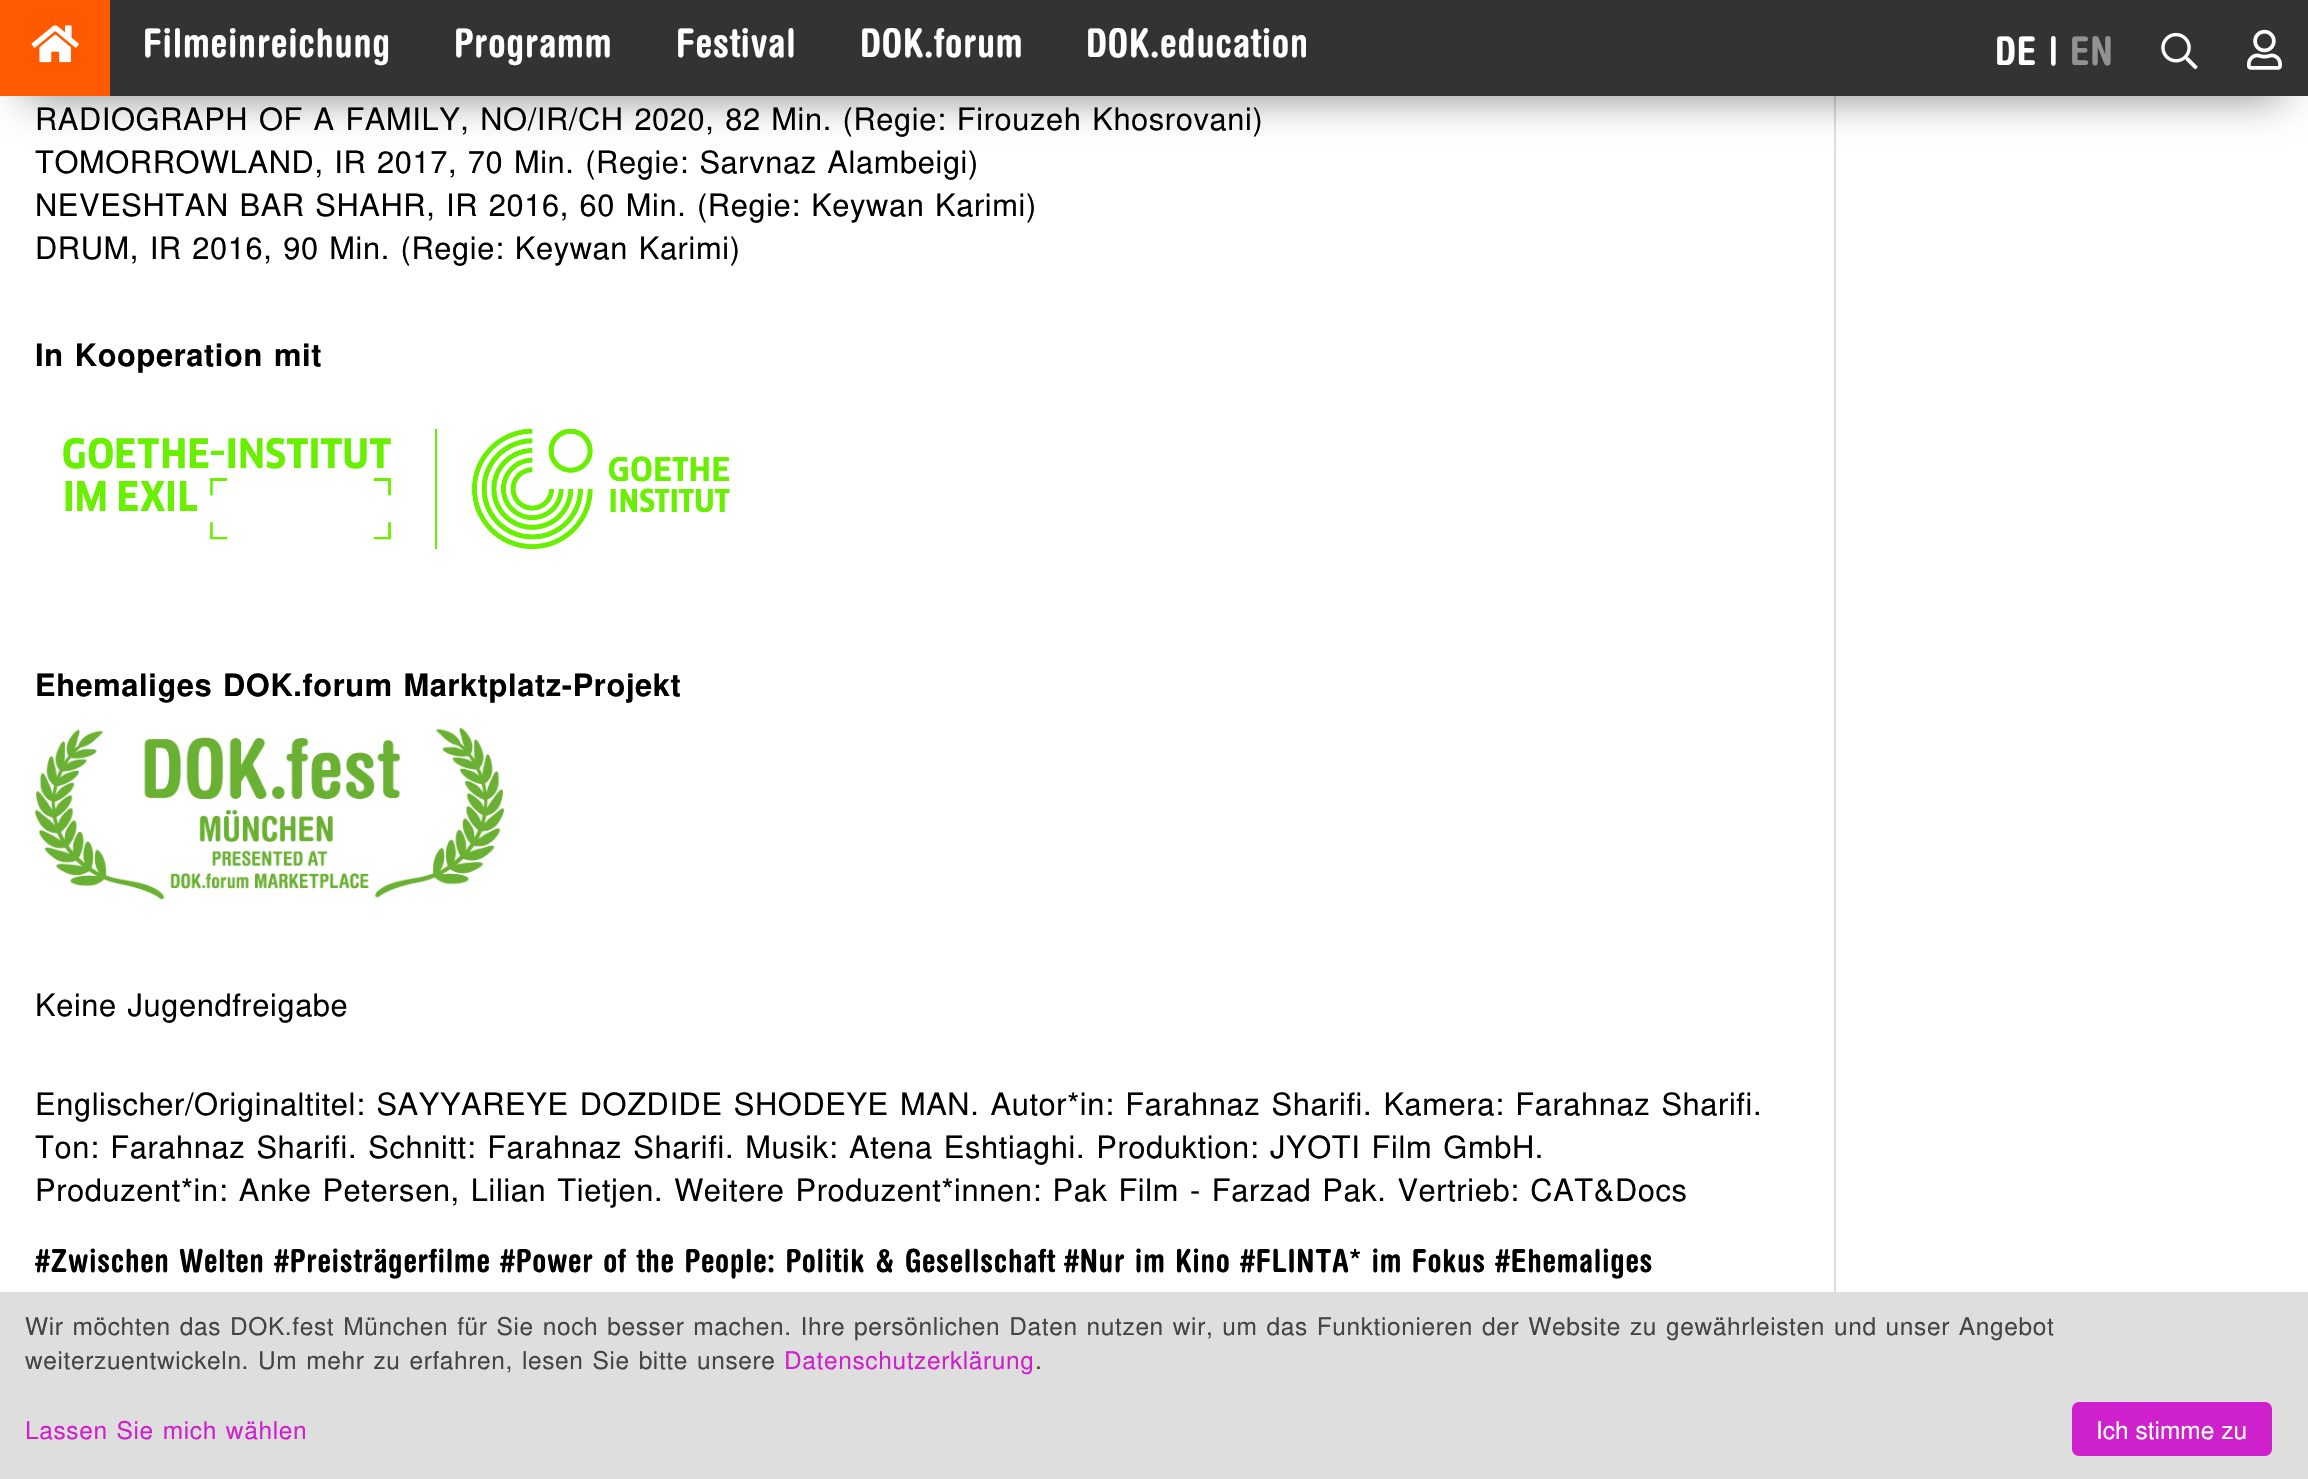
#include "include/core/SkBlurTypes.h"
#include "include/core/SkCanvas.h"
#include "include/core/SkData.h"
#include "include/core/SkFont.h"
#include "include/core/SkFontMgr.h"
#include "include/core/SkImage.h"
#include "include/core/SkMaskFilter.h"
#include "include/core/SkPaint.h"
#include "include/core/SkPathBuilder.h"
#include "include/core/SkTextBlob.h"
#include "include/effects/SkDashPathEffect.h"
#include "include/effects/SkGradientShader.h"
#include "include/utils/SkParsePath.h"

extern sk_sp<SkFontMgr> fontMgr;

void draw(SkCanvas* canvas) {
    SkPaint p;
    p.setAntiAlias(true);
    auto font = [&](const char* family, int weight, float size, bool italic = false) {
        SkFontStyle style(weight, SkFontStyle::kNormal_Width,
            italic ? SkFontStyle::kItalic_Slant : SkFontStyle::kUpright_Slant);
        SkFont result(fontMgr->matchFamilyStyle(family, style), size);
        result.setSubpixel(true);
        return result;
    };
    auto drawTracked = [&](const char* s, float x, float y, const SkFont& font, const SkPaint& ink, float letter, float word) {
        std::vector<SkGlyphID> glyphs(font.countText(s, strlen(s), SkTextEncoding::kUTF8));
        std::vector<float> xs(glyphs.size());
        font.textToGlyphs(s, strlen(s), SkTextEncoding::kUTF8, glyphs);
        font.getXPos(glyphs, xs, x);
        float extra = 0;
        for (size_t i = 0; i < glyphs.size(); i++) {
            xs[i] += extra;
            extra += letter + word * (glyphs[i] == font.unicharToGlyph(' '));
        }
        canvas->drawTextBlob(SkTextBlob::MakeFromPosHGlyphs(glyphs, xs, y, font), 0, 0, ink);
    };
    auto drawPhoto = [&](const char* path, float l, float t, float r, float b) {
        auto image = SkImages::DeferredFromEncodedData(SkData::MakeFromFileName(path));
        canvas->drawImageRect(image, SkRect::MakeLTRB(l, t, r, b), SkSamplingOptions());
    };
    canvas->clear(0xFFFFFFFF);
    p.setColor(0xFFDDDDDD);
    canvas->drawRect(SkRect::MakeLTRB(1834, 96, 1836, 1292), p);
    p.setColor(0x80000000);
    p.setMaskFilter(SkMaskFilter::MakeBlur(kNormal_SkBlurStyle, 22));
    canvas->drawRect(SkRect::MakeLTRB(26, 53, 2282, 96), p);
    p.setMaskFilter(nullptr);
    p.setColor(0xFF333333);
    canvas->drawRect(SkRect::MakeLTRB(110, 0, 2308, 96), p);
    p.setColor(0xFFFF5A00);
    canvas->drawRect(SkRect::MakeLTRB(0, 0, 110, 96), p);
    drawPhoto("media/1.png", 31, 25, 79, 63);
    auto font1 = font("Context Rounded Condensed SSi", 700, 42);
    p.setColor(0xFFFFFFFF);
    {
        const struct { const char* s; float x, y; } items[] = {
            {"Filmeinreichung", 143, 57},
            {"Programm", 454, 57},
            {"Festival", 676, 57},
            {"DOK.forum", 860, 57},
            {"DOK.education", 1086, 57},
            {"DE", 1995, 65},
            {"|", 2049, 65},
        };
        for (auto [s, x, y] : items) {
            drawTracked(s, x, y, font1, p, 0.8f, 0);
        }
    }
    p.setColor(0xFF939191);
    drawTracked("EN", 2070, 65, font1, p, 0.8f, 0);
    drawPhoto("media/2.png", 2161, 32, 2198, 70);
    drawPhoto("media/3.png", 2247, 29, 2282, 70);
    auto font2 = font("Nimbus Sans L", 400, 30.8f);
    p.setColor(0xFF000000);
    {
        const struct { const char* s; float x, y; } items[] = {
            {"RADIOGRAPH OF A FAMILY, NO/IR/CH 2020, 82 Min. (Regie: Firouzeh Khosrovani)", 35, 130},
            {"TOMORROWLAND, IR 2017, 70 Min. (Regie: Sarvnaz Alambeigi)", 35, 173},
            {"NEVESHTAN BAR SHAHR, IR 2016, 60 Min. (Regie: Keywan Karimi)", 35, 216},
            {"DRUM, IR 2016, 90 Min. (Regie: Keywan Karimi)", 35, 259},
        };
        for (auto [s, x, y] : items) {
            drawTracked(s, x, y, font2, p, 0.62f, 1.5f);
        }
    }
    auto font3 = font("Nimbus Sans L", 700, 30.8f);
    drawTracked("In Kooperation mit", 35, 366, font3, p, 0.62f, 2);
    drawPhoto("media/4.png", 63, 428, 730, 550);
    drawTracked("Ehemaliges DOK.forum Marktplatz-Projekt", 35, 696, font3, p, 0.62f, 1.5f);
    drawPhoto("media/5.png", 35, 727, 504, 900);
    drawTracked("Keine Jugendfreigabe", 35, 1016, font2, p, 0.62f, 1.5f);
    drawTracked("Englischer/Originaltitel: SAYYAREYE DOZDIDE SHODEYE MAN. Autor*in: Farahnaz Sharifi. Kamera: Farahnaz Sharifi.", 35, 1115, font2, p, 0.62f, 2);
    drawTracked("Ton: Farahnaz Sharifi. Schnitt: Farahnaz Sharifi. Musik: Atena Eshtiaghi. Produktion: JYOTI Film GmbH.", 35, 1158, font2, p, 0.62f, 2);
    drawTracked("Produzent*in: Anke Petersen, Lilian Tietjen. Weitere Produzent*innen: Pak Film - Farzad Pak. Vertrieb: CAT&Docs", 35, 1201, font2, p, 0.62f, 1.8f);
    auto font4 = font("Context Rounded Condensed SSi", 700, 33.9f);
    drawTracked("#Zwischen Welten", 35, 1272, font4, p, 0.7f, 1.5f);
    drawTracked("#Preisträgerfilme", 274, 1272, font4, p, 0.7f, 0);
    {
        const struct { const char* s; float x, y; } items[] = {
            {"#Power of the People: Politik & Gesellschaft", 500, 1272},
            {"#Nur im Kino", 1064, 1272},
            {"#FLINTA* im Fokus", 1240, 1272},
        };
        for (auto [s, x, y] : items) {
            drawTracked(s, x, y, font4, p, 0.7f, 1.5f);
        }
    }
    drawTracked("#Ehemaliges", 1495, 1272, font4, p, 0.7f, 0);
    p.setColor(0xFFDEDEDE);
    canvas->drawRect(SkRect::MakeLTRB(0, 1292, 2308, 1479), p);
    auto font5 = font("Nimbus Sans L", 400, 24.5f);
    p.setColor(0xFF444444);
    drawTracked("Wir möchten das DOK.fest München für Sie noch besser machen. Ihre persönlichen Daten nutzen wir, um das Funktionieren der Website zu gewährleisten und unser Angebot", 25, 1335, font5, p, 0.62f, 1.5f);
    drawTracked("weiterzuentwickeln. Um mehr zu erfahren, lesen Sie bitte unsere", 25, 1369, font5, p, 0.62f, 1.5f);
    p.setColor(0xFFCE20CC);
    drawTracked("Datenschutzerklärung", 784, 1369, font5, p, 0.62f, 0);
    p.setColor(0xFF444444);
    drawTracked(".", 1035, 1369, font5, p, 0.62f, 0);
    p.setColor(0xFFCE20CC);
    drawTracked("Lassen Sie mich wählen", 25, 1439, font5, p, 0.62f, 1.5f);
    canvas->drawRoundRect(SkRect::MakeLTRB(2072, 1402, 2272, 1456), 7, 7, p);
    p.setColor(0xFFFFFFFF);
    canvas->drawString("Ich stimme zu", 2096, 1439, font5, p);
}
